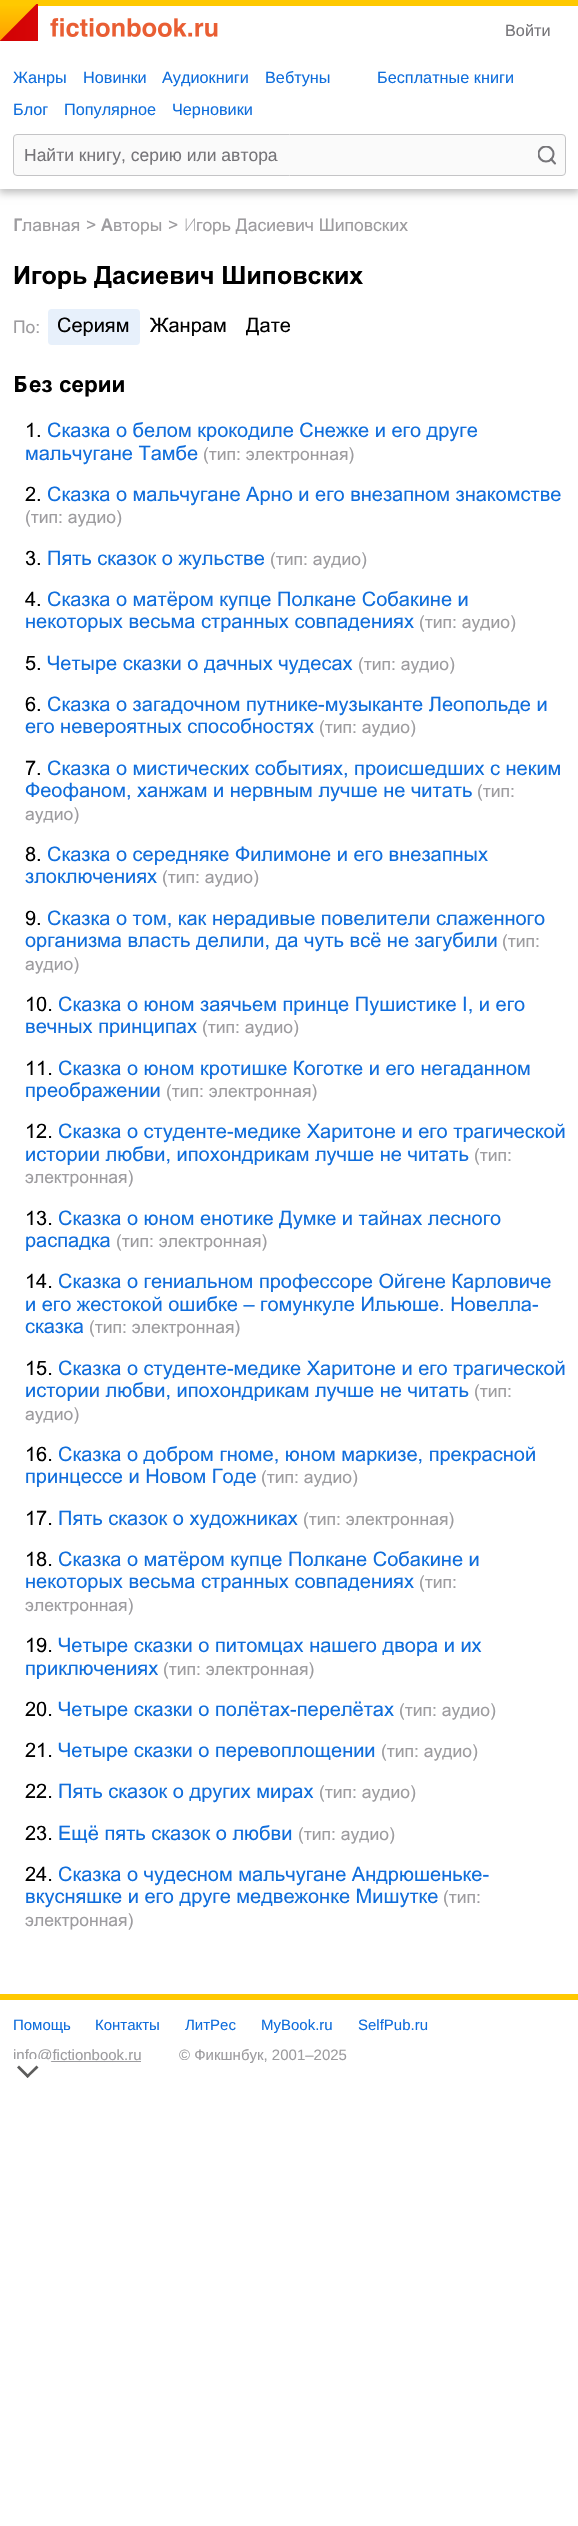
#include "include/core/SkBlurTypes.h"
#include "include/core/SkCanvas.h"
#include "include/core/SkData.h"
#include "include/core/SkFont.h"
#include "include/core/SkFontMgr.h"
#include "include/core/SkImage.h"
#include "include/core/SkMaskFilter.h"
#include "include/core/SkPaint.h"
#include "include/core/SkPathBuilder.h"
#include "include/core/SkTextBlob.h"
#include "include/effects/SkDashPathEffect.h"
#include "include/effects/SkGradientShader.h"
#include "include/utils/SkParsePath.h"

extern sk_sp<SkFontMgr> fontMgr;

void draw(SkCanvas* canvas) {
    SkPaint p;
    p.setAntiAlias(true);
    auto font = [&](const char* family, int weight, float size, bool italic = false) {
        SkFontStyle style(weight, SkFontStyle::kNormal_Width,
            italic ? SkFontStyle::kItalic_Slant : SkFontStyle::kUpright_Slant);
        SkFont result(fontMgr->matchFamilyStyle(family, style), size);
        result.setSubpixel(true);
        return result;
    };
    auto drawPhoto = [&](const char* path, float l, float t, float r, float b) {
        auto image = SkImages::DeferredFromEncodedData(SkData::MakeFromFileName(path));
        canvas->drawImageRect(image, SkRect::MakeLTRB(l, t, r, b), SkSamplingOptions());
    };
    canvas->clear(0xFFFFFFFF);
    p.setColor(0x40000000);
    p.setMaskFilter(SkMaskFilter::MakeBlur(kNormal_SkBlurStyle, 4));
    canvas->drawRect(SkRect::MakeLTRB(-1, 1, 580, 193), p);
    p.setMaskFilter(nullptr);
    p.setColor(0xFFFFFFFF);
    canvas->drawRect(SkRect::MakeLTRB(0, 6, 578, 189), p);
    p.setColor(0xFFFFC900);
    canvas->drawRect(SkRect::MakeLTRB(0, 0, 578, 6), p);
    {
        const SkColor colors[] = {0xFFFF9E00, 0xFFFFC900};
        const float stops[] = {0, 1};
        const SkPoint ends[] = {{19, 41}, {19, 3.8f}};
        p.setShader(SkGradientShader::MakeLinear(ends, colors, stops, 2, SkTileMode::kClamp));
        p.setAlpha(255);
    }
    canvas->drawRect(SkRect::MakeLTRB(0, 6, 37, 41), p);
    canvas->save();
    canvas->clipRect(SkRect::MakeLTRB(0, 4, 38, 41));
    {
        const SkColor colors[] = {0xFFCF0002, 0xFFEC1516};
        const float stops[] = {0, 1};
        const SkPoint ends[] = {{-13, 54}, {163, 54}};
        p.setShader(SkGradientShader::MakeLinear(ends, colors, stops, 2, SkTileMode::kClamp));
        p.setAlpha(255);
    }
    canvas->drawPath(SkPathBuilder().moveTo(75, -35).lineTo(163, 54).lineTo(75, 142).lineTo(-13, 54).close().detach(), p);
    canvas->restore();
    drawPhoto("media/1.png", 50, 18, 218, 37);
    auto font1 = font("Liberation Sans", 400, 16.25f);
    p.setShader(nullptr);
    p.setColor(0xFF767579);
    canvas->drawString("Войти", 505, 36, font1, p);
    p.setColor(0xFF106EDC);
    {
        const struct { const char* s; float x, y; } items[] = {
            {"Жанры", 13, 83},
            {"Новинки", 83, 83},
            {"Аудиокниги", 162, 83},
            {"Вебтуны", 265, 83},
            {"Бесплатные книги", 377, 83},
            {"Блог", 13, 115},
            {"Популярное", 64, 115},
            {"Черновики", 172, 115},
        };
        for (auto [s, x, y] : items) {
            canvas->drawString(s, x, y, font1, p);
        }
    }
    p.setColor(0xFFFAFAFA);
    canvas->drawRoundRect(SkRect::MakeLTRB(13.5f, 134.5f, 565.5f, 175.5f), 3.5f, 3.5f, p);
    p.setStyle(SkPaint::kStroke_Style);
    p.setStrokeWidth(1);
    p.setColor(0xFFC4C4C6);
    canvas->drawRoundRect(SkRect::MakeLTRB(13.5f, 134.5f, 565.5f, 175.5f), 3.5f, 3.5f, p);
    auto font2 = font("Liberation Sans", 400, 17.5f);
    p.setStyle(SkPaint::kFill_Style);
    p.setColor(0xFF767579);
    canvas->drawString("Найти книгу, серию или автора", 24, 161, font2, p);
    p.setStyle(SkPaint::kStroke_Style);
    p.setStrokeWidth(2.1f);
    p.setStrokeCap(SkPaint::kRound_Cap);
    p.setStrokeJoin(SkPaint::kRound_Join);
    canvas->drawPath(SkPathBuilder().moveTo(551, 159).lineTo(555, 163.5f).detach(), p);
    canvas->save();
    canvas->clipRect(SkRect::MakeLTRB(538, 146, 556, 165));
    p.setStrokeCap(SkPaint::kButt_Cap);
    p.setStrokeJoin(SkPaint::kMiter_Join);
    canvas->drawCircle(546, 154, 7.5f, p);
    canvas->restore();
    auto font3 = font("Noto Sans", 600, 17.5f);
    p.setStyle(SkPaint::kFill_Style);
    p.setColor(0xFF9D9C9F);
    canvas->drawString("Г", 13, 231, font3, p);
    auto font4 = font("Arial", 400, 17.5f);
    canvas->drawString("лавная", 22, 231, font4, p);
    canvas->drawString(">", 86, 231, font4, p);
    canvas->drawString("А", 101, 231, font3, p);
    canvas->drawString("вторы", 113, 231, font4, p);
    canvas->drawString(">", 168, 231, font4, p);
    auto font5 = font("Noto Sans", 200, 17.5f);
    canvas->drawString("И", 184, 231, font5, p);
    canvas->drawString("горь Дасиевич Шиповских", 196, 231, font4, p);
    auto font6 = font("Arial", 700, 25);
    p.setColor(0xFF000000);
    canvas->drawString("Игорь Дасиевич Шиповских", 13, 284, font6, p);
    p.setColor(0xFF9D9C9F);
    canvas->drawString("По:", 13, 333, font4, p);
    p.setColor(0xFFE7F0FB);
    canvas->drawRoundRect(SkRect::MakeLTRB(48, 309, 140, 345), 4, 4, p);
    auto font7 = font("Arial", 400, 20);
    p.setColor(0xFF000000);
    {
        const struct { const char* s; float x, y; } items[] = {
            {"Сериям", 57, 332},
            {"Жанрам", 150, 332},
            {"Дате", 246, 332},
        };
        for (auto [s, x, y] : items) {
            canvas->drawString(s, x, y, font7, p);
        }
    }
    auto font8 = font("Noto Sans", 700, 22.5f);
    canvas->drawString("Б", 13, 392, font8, p);
    auto font9 = font("Arial", 700, 22.5f);
    canvas->drawString("ез серии", 29, 392, font9, p);
    canvas->drawString("1.", 25, 437, font7, p);
    p.setColor(0xFF106EDC);
    canvas->drawString("Сказка о белом крокодиле Снежке и его друге", 47, 437, font7, p);
    canvas->drawString("мальчугане Тамбе", 25, 460, font7, p);
    p.setColor(0xFF9D9C9F);
    canvas->drawString("(тип: электронная)", 203, 460, font4, p);
    p.setColor(0xFF000000);
    canvas->drawString("2.", 25, 501, font7, p);
    p.setColor(0xFF106EDC);
    canvas->drawString("Сказка о мальчугане Арно и его внезапном знакомстве", 47, 501, font7, p);
    p.setColor(0xFF9D9C9F);
    canvas->drawString("(тип: аудио)", 25, 523, font4, p);
    p.setColor(0xFF000000);
    canvas->drawString("3.", 25, 565, font7, p);
    p.setColor(0xFF106EDC);
    canvas->drawString("Пять сказок о жульстве", 47, 565, font7, p);
    p.setColor(0xFF9D9C9F);
    canvas->drawString("(тип: аудио)", 270, 565, font4, p);
    p.setColor(0xFF000000);
    canvas->drawString("4.", 25, 606, font7, p);
    p.setColor(0xFF106EDC);
    canvas->drawString("Сказка о матёром купце Полкане Собакине и", 47, 606, font7, p);
    canvas->drawString("некоторых весьма странных совпадениях", 25, 628, font7, p);
    p.setColor(0xFF9D9C9F);
    canvas->drawString("(тип: аудио)", 419, 628, font4, p);
    p.setColor(0xFF000000);
    canvas->drawString("5.", 25, 670, font7, p);
    p.setColor(0xFF106EDC);
    canvas->drawString("Четыре сказки о дачных чудесах", 47, 670, font7, p);
    p.setColor(0xFF9D9C9F);
    canvas->drawString("(тип: аудио)", 358, 670, font4, p);
    p.setColor(0xFF000000);
    canvas->drawString("6.", 25, 711, font7, p);
    p.setColor(0xFF106EDC);
    canvas->drawString("Сказка о загадочном путнике-музыканте Леопольде и", 47, 711, font7, p);
    canvas->drawString("его невероятных способностях", 25, 733, font7, p);
    p.setColor(0xFF9D9C9F);
    canvas->drawString("(тип: аудио)", 319, 733, font4, p);
    p.setColor(0xFF000000);
    canvas->drawString("7.", 25, 775, font7, p);
    p.setColor(0xFF106EDC);
    canvas->drawString("Сказка о мистических событиях, происшедших с неким", 47, 775, font7, p);
    canvas->drawString("Феофаном, ханжам и нервным лучше не читать", 25, 797, font7, p);
    p.setColor(0xFF9D9C9F);
    canvas->drawString("(тип:", 477, 797, font4, p);
    canvas->drawString("аудио)", 25, 820, font4, p);
    p.setColor(0xFF000000);
    canvas->drawString("8.", 25, 861, font7, p);
    p.setColor(0xFF106EDC);
    canvas->drawString("Сказка о середняке Филимоне и его внезапных", 47, 861, font7, p);
    canvas->drawString("злоключениях", 25, 883, font7, p);
    p.setColor(0xFF9D9C9F);
    canvas->drawString("(тип: аудио)", 162, 883, font4, p);
    p.setColor(0xFF000000);
    canvas->drawString("9.", 25, 925, font7, p);
    p.setColor(0xFF106EDC);
    canvas->drawString("Сказка о том, как нерадивые повелители слаженного", 47, 925, font7, p);
    canvas->drawString("организма власть делили, да чуть всё не загубили", 25, 947, font7, p);
    p.setColor(0xFF9D9C9F);
    canvas->drawString("(тип:", 502, 947, font4, p);
    canvas->drawString("аудио)", 25, 970, font4, p);
    p.setColor(0xFF000000);
    canvas->drawString("10.", 25, 1011, font7, p);
    p.setColor(0xFF106EDC);
    canvas->drawString("Сказка о юном заячьем принце Пушистике I, и его", 58, 1011, font7, p);
    canvas->drawString("вечных принципах", 25, 1033, font7, p);
    p.setColor(0xFF9D9C9F);
    canvas->drawString("(тип: аудио)", 202, 1033, font4, p);
    p.setColor(0xFF000000);
    canvas->drawString("11.", 25, 1075, font7, p);
    p.setColor(0xFF106EDC);
    canvas->drawString("Сказка о юном кротишке Коготке и его негаданном", 58, 1075, font7, p);
    canvas->drawString("преображении", 25, 1097, font7, p);
    p.setColor(0xFF9D9C9F);
    canvas->drawString("(тип: электронная)", 166, 1097, font4, p);
    p.setColor(0xFF000000);
    canvas->drawString("12.", 25, 1138, font7, p);
    p.setColor(0xFF106EDC);
    canvas->drawString("Сказка о студенте-медике Харитоне и его трагической", 58, 1138, font7, p);
    canvas->drawString("истории любви, ипохондрикам лучше не читать", 25, 1161, font7, p);
    p.setColor(0xFF9D9C9F);
    canvas->drawString("(тип:", 474, 1161, font4, p);
    canvas->drawString("электронная)", 25, 1183, font4, p);
    p.setColor(0xFF000000);
    canvas->drawString("13.", 25, 1225, font7, p);
    p.setColor(0xFF106EDC);
    canvas->drawString("Сказка о юном енотике Думке и тайнах лесного", 58, 1225, font7, p);
    canvas->drawString("распадка", 25, 1247, font7, p);
    p.setColor(0xFF9D9C9F);
    canvas->drawString("(тип: электронная)", 116, 1247, font4, p);
    p.setColor(0xFF000000);
    canvas->drawString("14.", 25, 1288, font7, p);
    p.setColor(0xFF106EDC);
    {
        const struct { const char* s; float x, y; } items[] = {
            {"Сказка о гениальном профессоре Ойгене Карловиче", 58, 1288},
            {"и его жестокой ошибке – гомункуле Ильюше. Новелла-", 25, 1311},
            {"сказка", 25, 1333},
        };
        for (auto [s, x, y] : items) {
            canvas->drawString(s, x, y, font7, p);
        }
    }
    p.setColor(0xFF9D9C9F);
    canvas->drawString("(тип: электронная)", 89, 1333, font4, p);
    p.setColor(0xFF000000);
    canvas->drawString("15.", 25, 1375, font7, p);
    p.setColor(0xFF106EDC);
    canvas->drawString("Сказка о студенте-медике Харитоне и его трагической", 58, 1375, font7, p);
    canvas->drawString("истории любви, ипохондрикам лучше не читать", 25, 1397, font7, p);
    p.setColor(0xFF9D9C9F);
    canvas->drawString("(тип:", 474, 1397, font4, p);
    canvas->drawString("аудио)", 25, 1420, font4, p);
    p.setColor(0xFF000000);
    canvas->drawString("16.", 25, 1461, font7, p);
    p.setColor(0xFF106EDC);
    canvas->drawString("Сказка о добром гноме, юном маркизе, прекрасной", 58, 1461, font7, p);
    canvas->drawString("принцессе и Новом Годе", 25, 1483, font7, p);
    p.setColor(0xFF9D9C9F);
    canvas->drawString("(тип: аудио)", 261, 1483, font4, p);
    p.setColor(0xFF000000);
    canvas->drawString("17.", 25, 1525, font7, p);
    p.setColor(0xFF106EDC);
    canvas->drawString("Пять сказок о художниках", 58, 1525, font7, p);
    p.setColor(0xFF9D9C9F);
    canvas->drawString("(тип: электронная)", 303, 1525, font4, p);
    p.setColor(0xFF000000);
    canvas->drawString("18.", 25, 1566, font7, p);
    p.setColor(0xFF106EDC);
    canvas->drawString("Сказка о матёром купце Полкане Собакине и", 58, 1566, font7, p);
    canvas->drawString("некоторых весьма странных совпадениях", 25, 1588, font7, p);
    p.setColor(0xFF9D9C9F);
    canvas->drawString("(тип:", 419, 1588, font4, p);
    canvas->drawString("электронная)", 25, 1611, font4, p);
    p.setColor(0xFF000000);
    canvas->drawString("19.", 25, 1652, font7, p);
    p.setColor(0xFF106EDC);
    canvas->drawString("Четыре сказки о питомцах нашего двора и их", 58, 1652, font7, p);
    canvas->drawString("приключениях", 25, 1675, font7, p);
    p.setColor(0xFF9D9C9F);
    canvas->drawString("(тип: электронная)", 163, 1675, font4, p);
    p.setColor(0xFF000000);
    canvas->drawString("20.", 25, 1716, font7, p);
    p.setColor(0xFF106EDC);
    canvas->drawString("Четыре сказки о полётах-перелётах", 58, 1716, font7, p);
    p.setColor(0xFF9D9C9F);
    canvas->drawString("(тип: аудио)", 399, 1716, font4, p);
    p.setColor(0xFF000000);
    canvas->drawString("21.", 25, 1757, font7, p);
    p.setColor(0xFF106EDC);
    canvas->drawString("Четыре сказки о перевоплощении", 58, 1757, font7, p);
    p.setColor(0xFF9D9C9F);
    canvas->drawString("(тип: аудио)", 381, 1757, font4, p);
    p.setColor(0xFF000000);
    canvas->drawString("22.", 25, 1798, font7, p);
    p.setColor(0xFF106EDC);
    canvas->drawString("Пять сказок о других мирах", 58, 1798, font7, p);
    p.setColor(0xFF9D9C9F);
    canvas->drawString("(тип: аудио)", 319, 1798, font4, p);
    p.setColor(0xFF000000);
    canvas->drawString("23.", 25, 1840, font7, p);
    p.setColor(0xFF106EDC);
    canvas->drawString("Ещё пять сказок о любви", 58, 1840, font7, p);
    p.setColor(0xFF9D9C9F);
    canvas->drawString("(тип: аудио)", 298, 1840, font4, p);
    p.setColor(0xFF000000);
    canvas->drawString("24.", 25, 1881, font7, p);
    p.setColor(0xFF106EDC);
    canvas->drawString("Сказка о чудесном мальчугане Андрюшеньке-", 58, 1881, font7, p);
    canvas->drawString("вкусняшке и его друге медвежонке Мишутке", 25, 1903, font7, p);
    p.setColor(0xFF9D9C9F);
    canvas->drawString("(тип:", 443, 1903, font4, p);
    canvas->drawString("электронная)", 25, 1926, font4, p);
    p.setColor(0xFFFFC900);
    canvas->drawRect(SkRect::MakeLTRB(0, 1994, 578, 2000), p);
    auto font10 = font("Liberation Sans", 400, 15);
    p.setColor(0xFF106EDC);
    {
        const struct { const char* s; float x, y; } items[] = {
            {"Помощь", 13, 2030},
            {"Контакты", 95, 2030},
            {"ЛитРес", 185, 2030},
            {"MyBook.ru", 261, 2030},
            {"SelfPub.ru", 358, 2030},
        };
        for (auto [s, x, y] : items) {
            canvas->drawString(s, x, y, font10, p);
        }
    }
    p.setColor(0xFF9D9C9F);
    canvas->drawRect(SkRect::MakeLTRB(50, 2061, 141, 2062), p);
    canvas->drawString("info@fictionbook.ru", 13, 2060, font10, p);
    canvas->drawString("© Фикшнбук, 2001–2025", 179, 2060, font10, p);
    p.setColor(0xFFFFFFFF);
    canvas->drawPath(SkPathBuilder().moveTo(0, 2059).lineTo(43.5f, 2059).cubicTo(50.5f, 2059, 56, 2064.5f, 56, 2071.5f).lineTo(56, 2084).lineTo(0, 2084).close().detach(), p);
    p.setColor(0xFF5C5C5B);
    canvas->drawPath(SkPathBuilder().moveTo(36.5f, 2065.5f).lineTo(38.5f, 2067.5f).lineTo(27.5f, 2078).lineTo(26, 2076).close().detach(), p);
    canvas->drawPath(SkPathBuilder().moveTo(19, 2065.5f).lineTo(29.5f, 2076).lineTo(27.5f, 2078).lineTo(17, 2067.5f).close().detach(), p);
}
